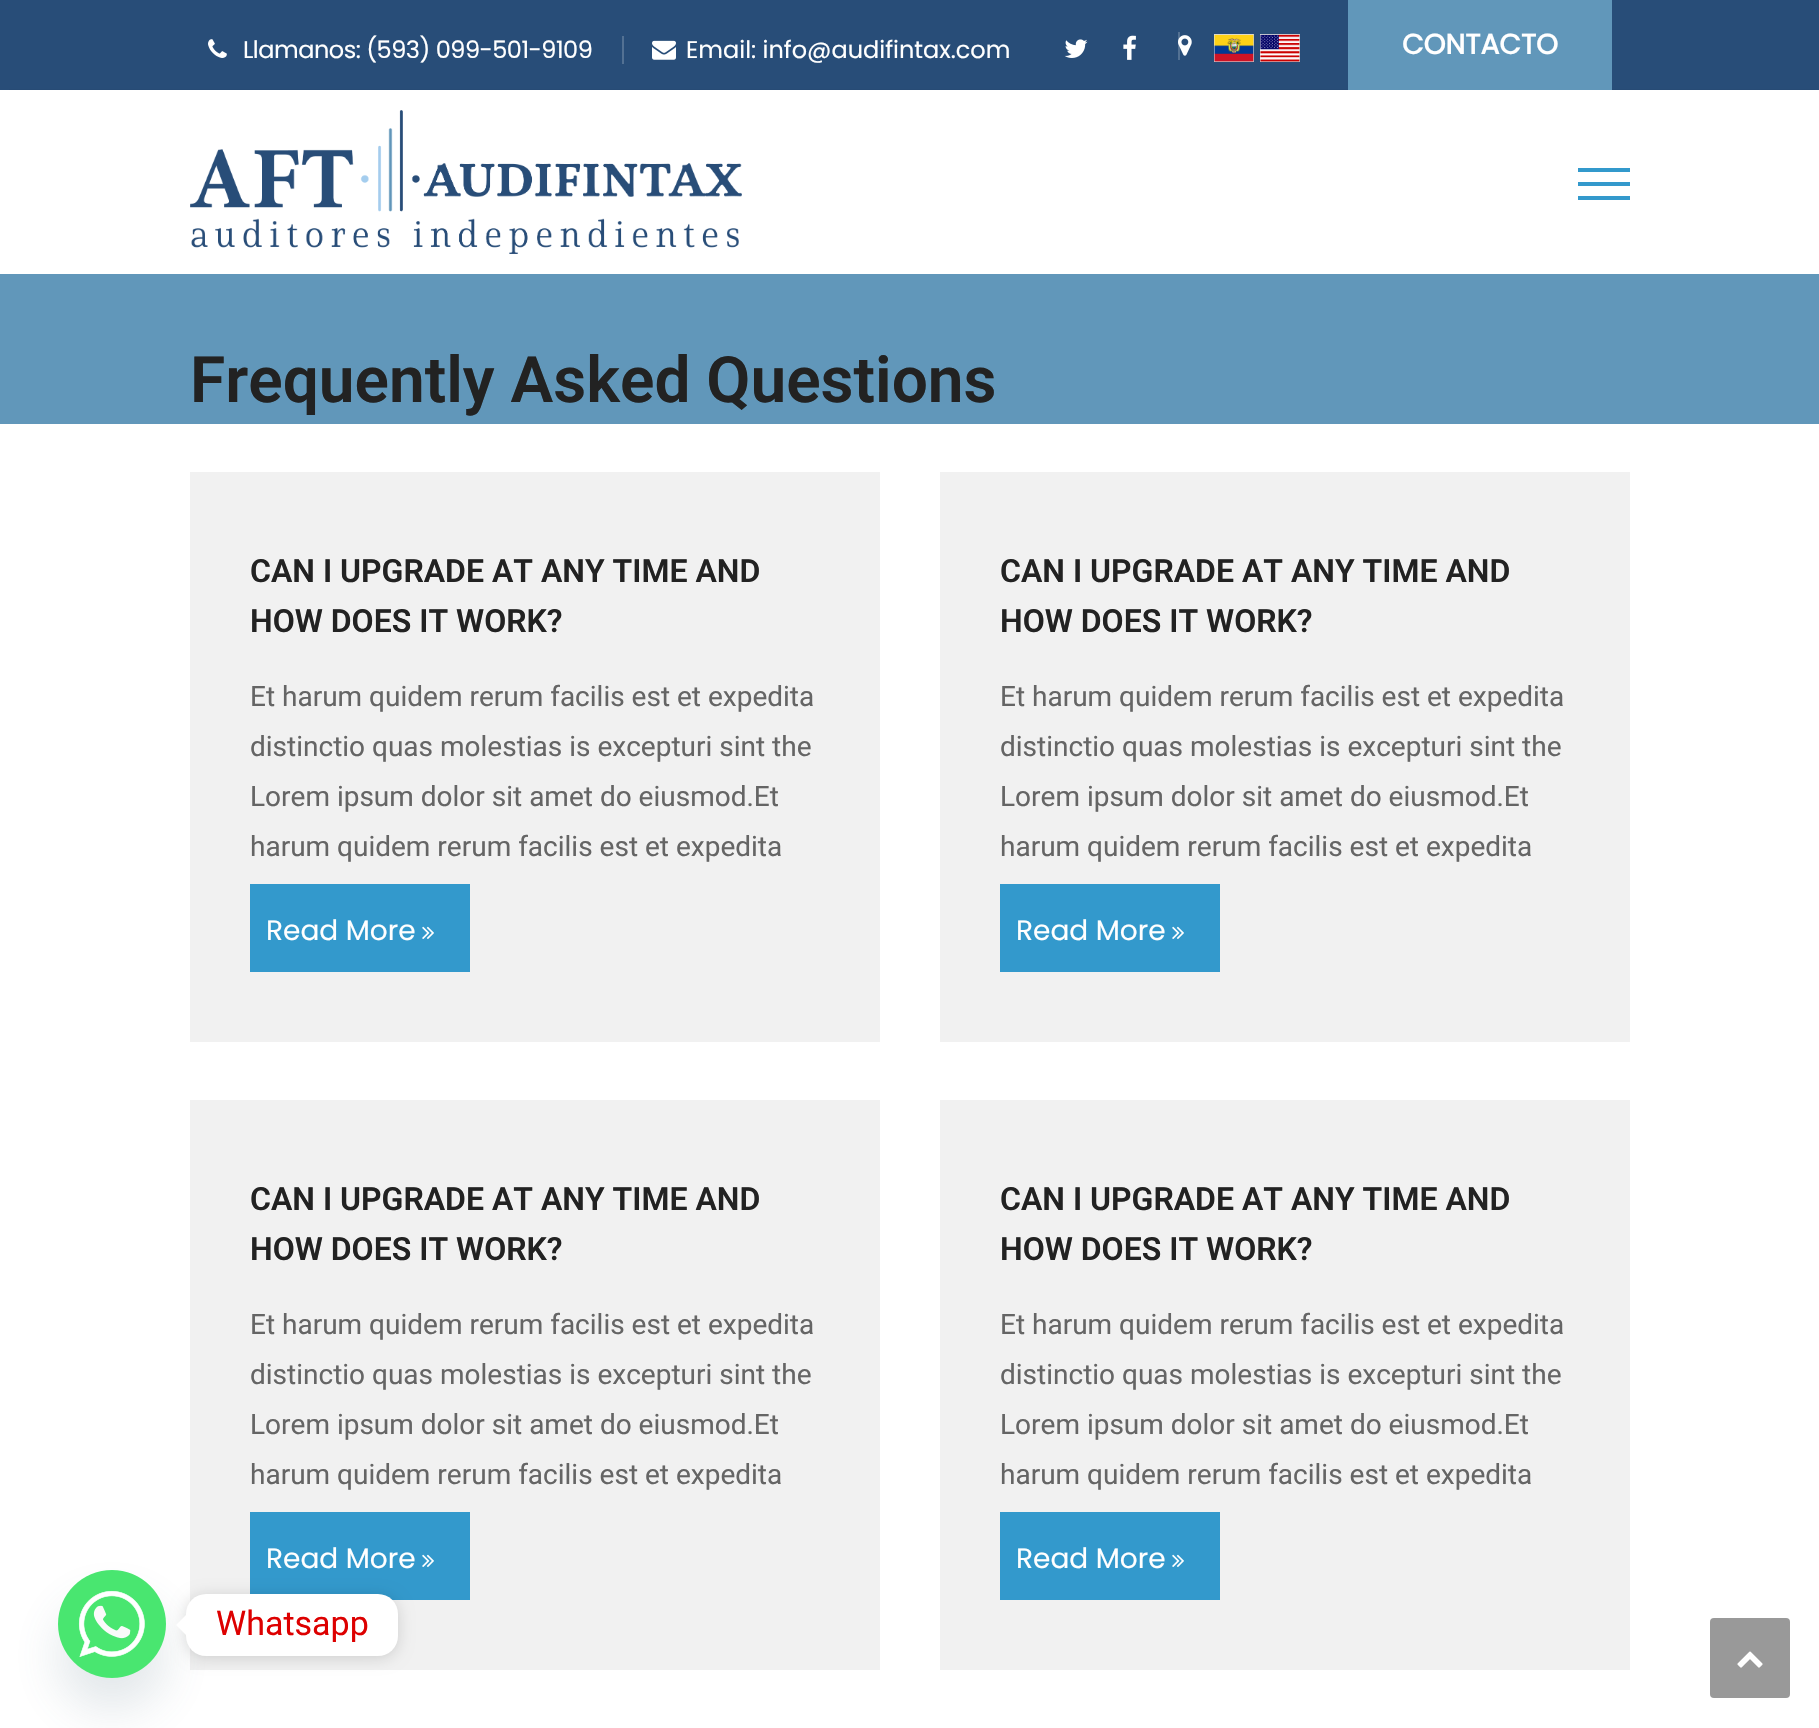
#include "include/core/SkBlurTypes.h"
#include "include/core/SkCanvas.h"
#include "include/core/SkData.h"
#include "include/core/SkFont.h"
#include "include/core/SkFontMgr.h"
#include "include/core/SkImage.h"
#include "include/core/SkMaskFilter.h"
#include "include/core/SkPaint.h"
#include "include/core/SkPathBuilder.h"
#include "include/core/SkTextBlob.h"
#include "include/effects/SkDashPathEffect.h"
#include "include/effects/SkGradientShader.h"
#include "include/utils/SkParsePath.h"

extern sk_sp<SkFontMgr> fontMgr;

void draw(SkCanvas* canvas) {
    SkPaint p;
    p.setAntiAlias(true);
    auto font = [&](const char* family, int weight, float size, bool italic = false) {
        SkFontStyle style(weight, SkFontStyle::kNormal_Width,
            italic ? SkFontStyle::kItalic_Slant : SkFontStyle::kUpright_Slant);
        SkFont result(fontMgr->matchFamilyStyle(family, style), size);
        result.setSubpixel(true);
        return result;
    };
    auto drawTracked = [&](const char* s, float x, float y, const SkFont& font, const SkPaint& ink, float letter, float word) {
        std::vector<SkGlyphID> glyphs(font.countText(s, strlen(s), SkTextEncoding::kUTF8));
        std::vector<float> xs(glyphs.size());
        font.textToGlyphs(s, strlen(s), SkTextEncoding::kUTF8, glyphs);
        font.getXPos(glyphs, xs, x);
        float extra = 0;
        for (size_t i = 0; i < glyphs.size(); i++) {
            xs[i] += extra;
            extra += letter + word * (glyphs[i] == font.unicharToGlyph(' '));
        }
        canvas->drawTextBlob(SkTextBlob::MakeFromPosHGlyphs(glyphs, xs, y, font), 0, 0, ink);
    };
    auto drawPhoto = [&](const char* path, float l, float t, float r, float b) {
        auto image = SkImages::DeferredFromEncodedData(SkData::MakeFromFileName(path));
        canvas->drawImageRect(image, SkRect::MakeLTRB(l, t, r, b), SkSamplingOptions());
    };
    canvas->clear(0xFFFFFFFF);
    p.setColor(0xFF284D78);
    canvas->drawRect(SkRect::MakeLTRB(0, 0, 1819, 90), p);
    drawPhoto("media/1.png", 208, 39, 227, 58);
    auto font1 = font("Poppins", 400, 24);
    p.setColor(0xFFFFFFFF);
    drawTracked("Llamanos: (593) 099-501-9109", 243, 58, font1, p, -0.5f, 0);
    p.setColor(0xFF537193);
    canvas->drawRect(SkRect::MakeLTRB(622, 36, 624, 64), p);
    drawPhoto("media/2.png", 652, 40, 676, 60);
    p.setColor(0xFFFFFFFF);
    canvas->drawString("Email: info@audifintax.com", 686, 58, font1, p);
    drawPhoto("media/3.png", 1064, 39, 1088, 58);
    drawPhoto("media/4.png", 1123, 35, 1136, 60);
    drawPhoto("media/5.png", 1178, 35, 1192, 56);
    p.setColor(0x33FFFFFF);
    canvas->drawRect(SkRect::MakeLTRB(1178, 32, 1180, 60), p);
    drawPhoto("media/6.png", 1214, 34, 1254, 62);
    drawPhoto("media/7.png", 1260, 34, 1300, 62);
    canvas->save();
    canvas->clipRect(SkRect::MakeLTRB(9, 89, 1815, 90));
    p.setColor(0x12000000);
    p.setMaskFilter(SkMaskFilter::MakeBlur(kNormal_SkBlurStyle, 5));
    canvas->drawRect(SkRect::MakeLTRB(2, 92, 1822, 276), p);
    p.setMaskFilter(nullptr);
    canvas->restore();
    p.setColor(0xFF6197BA);
    canvas->drawRect(SkRect::MakeLTRB(1348, 0, 1612, 90), p);
    auto font2 = font("Poppins", 700, 28);
    p.setColor(0xFFFFFFFF);
    canvas->drawString("CONTACTO", 1402, 54, font2, p);
    drawPhoto("media/8.png", 190, 110, 742, 254);
    {
        const struct { float l, t, r, b; SkColor color; } items[] = {
            {1578, 168, 1630, 172, 0xFF3399CC},
            {1578, 182, 1630, 186, 0xFF3399CC},
            {1578, 196, 1630, 200, 0xFF3399CC},
            {0, 274, 1819, 424, 0xFF6197BA},
        };
        for (auto [l, t, r, b, color] : items) {
            p.setColor(color);
            canvas->drawRect(SkRect::MakeLTRB(l, t, r, b), p);
        }
    }
    auto font3 = font("Roboto", 600, 64);
    p.setColor(0xFF222222);
    canvas->drawString("Frequently Asked Questions", 190, 402, font3, p);
    p.setColor(0xFFF1F1F1);
    canvas->drawRect(SkRect::MakeLTRB(190, 472, 880, 1042), p);
    auto font4 = font("Roboto", 600, 32);
    p.setColor(0xFF222222);
    canvas->drawString("CAN I UPGRADE AT ANY TIME AND", 250, 582, font4, p);
    canvas->drawString("HOW DOES IT WORK?", 250, 632, font4, p);
    auto font5 = font("Roboto", 400, 28);
    p.setColor(0xFF656565);
    {
        const struct { const char* s; float x, y; } items[] = {
            {"Et harum quidem rerum facilis est et expedita", 250, 706},
            {"distinctio quas molestias is excepturi sint the", 250, 756},
            {"Lorem ipsum dolor sit amet do eiusmod.Et", 250, 806},
            {"harum quidem rerum facilis est et expedita", 250, 856},
        };
        for (auto [s, x, y] : items) {
            canvas->drawString(s, x, y, font5, p);
        }
    }
    p.setColor(0xFF3399CC);
    canvas->drawRect(SkRect::MakeLTRB(250, 884, 470, 972), p);
    auto font6 = font("Poppins", 400, 28);
    p.setColor(0xFFFFFFFF);
    canvas->drawString("Read More", 266, 940, font6, p);
    drawPhoto("media/9.png", 422, 926, 434, 939);
    p.setColor(0xFFF1F1F1);
    canvas->drawRect(SkRect::MakeLTRB(940, 472, 1630, 1042), p);
    p.setColor(0xFF222222);
    canvas->drawString("CAN I UPGRADE AT ANY TIME AND", 1000, 582, font4, p);
    canvas->drawString("HOW DOES IT WORK?", 1000, 632, font4, p);
    p.setColor(0xFF656565);
    {
        const struct { const char* s; float x, y; } items[] = {
            {"Et harum quidem rerum facilis est et expedita", 1000, 706},
            {"distinctio quas molestias is excepturi sint the", 1000, 756},
            {"Lorem ipsum dolor sit amet do eiusmod.Et", 1000, 806},
            {"harum quidem rerum facilis est et expedita", 1000, 856},
        };
        for (auto [s, x, y] : items) {
            canvas->drawString(s, x, y, font5, p);
        }
    }
    p.setColor(0xFF3399CC);
    canvas->drawRect(SkRect::MakeLTRB(1000, 884, 1220, 972), p);
    p.setColor(0xFFFFFFFF);
    canvas->drawString("Read More", 1016, 940, font6, p);
    drawPhoto("media/9.png", 1172, 926, 1184, 939);
    p.setColor(0xFFF1F1F1);
    canvas->drawRect(SkRect::MakeLTRB(190, 1100, 880, 1670), p);
    p.setColor(0xFF222222);
    canvas->drawString("CAN I UPGRADE AT ANY TIME AND", 250, 1210, font4, p);
    canvas->drawString("HOW DOES IT WORK?", 250, 1260, font4, p);
    p.setColor(0xFF656565);
    {
        const struct { const char* s; float x, y; } items[] = {
            {"Et harum quidem rerum facilis est et expedita", 250, 1334},
            {"distinctio quas molestias is excepturi sint the", 250, 1384},
            {"Lorem ipsum dolor sit amet do eiusmod.Et", 250, 1434},
            {"harum quidem rerum facilis est et expedita", 250, 1484},
        };
        for (auto [s, x, y] : items) {
            canvas->drawString(s, x, y, font5, p);
        }
    }
    p.setColor(0xFF3399CC);
    canvas->drawRect(SkRect::MakeLTRB(250, 1512, 470, 1600), p);
    p.setColor(0xFFFFFFFF);
    canvas->drawString("Read More", 266, 1568, font6, p);
    drawPhoto("media/9.png", 422, 1554, 434, 1567);
    p.setColor(0xFFF1F1F1);
    canvas->drawRect(SkRect::MakeLTRB(940, 1100, 1630, 1670), p);
    p.setColor(0xFF222222);
    canvas->drawString("CAN I UPGRADE AT ANY TIME AND", 1000, 1210, font4, p);
    canvas->drawString("HOW DOES IT WORK?", 1000, 1260, font4, p);
    p.setColor(0xFF656565);
    {
        const struct { const char* s; float x, y; } items[] = {
            {"Et harum quidem rerum facilis est et expedita", 1000, 1334},
            {"distinctio quas molestias is excepturi sint the", 1000, 1384},
            {"Lorem ipsum dolor sit amet do eiusmod.Et", 1000, 1434},
            {"harum quidem rerum facilis est et expedita", 1000, 1484},
        };
        for (auto [s, x, y] : items) {
            canvas->drawString(s, x, y, font5, p);
        }
    }
    p.setColor(0xFF3399CC);
    canvas->drawRect(SkRect::MakeLTRB(1000, 1512, 1220, 1600), p);
    p.setColor(0xFFFFFFFF);
    canvas->drawString("Read More", 1016, 1568, font6, p);
    drawPhoto("media/9.png", 1172, 1554, 1184, 1567);
    p.setColor(0xFF999999);
    canvas->drawRoundRect(SkRect::MakeLTRB(1710, 1618, 1790, 1698), 4, 4, p);
    drawPhoto("media/10.png", 1737, 1651, 1763, 1668);
    p.setColor(0x2949687E);
    p.setMaskFilter(SkMaskFilter::MakeBlur(kNormal_SkBlurStyle, 24));
    canvas->drawRoundRect(SkRect::MakeLTRB(58, 1602, 166, 1710), 54, 54, p);
    p.setMaskFilter(nullptr);
    drawPhoto("media/11.png", 58, 1570, 166, 1678);
    p.setColor(0x26000000);
    p.setMaskFilter(SkMaskFilter::MakeBlur(kNormal_SkBlurStyle, 7.5f));
    canvas->drawRoundRect(SkRect::MakeLTRB(186, 1596, 398, 1658), 20, 20, p);
    p.setMaskFilter(nullptr);
    p.setColor(0xFFFFFFFF);
    canvas->drawRoundRect(SkRect::MakeLTRB(186, 1594, 398, 1656), 20, 20, p);
    canvas->drawPath(SkPathBuilder().moveTo(186, 1615).lineTo(186, 1635).lineTo(176, 1625).close().detach(), p);
    auto font7 = font("Roboto", 400, 34);
    p.setColor(0xFFDD0000);
    canvas->drawString("Whatsapp", 216, 1635, font7, p);
}
